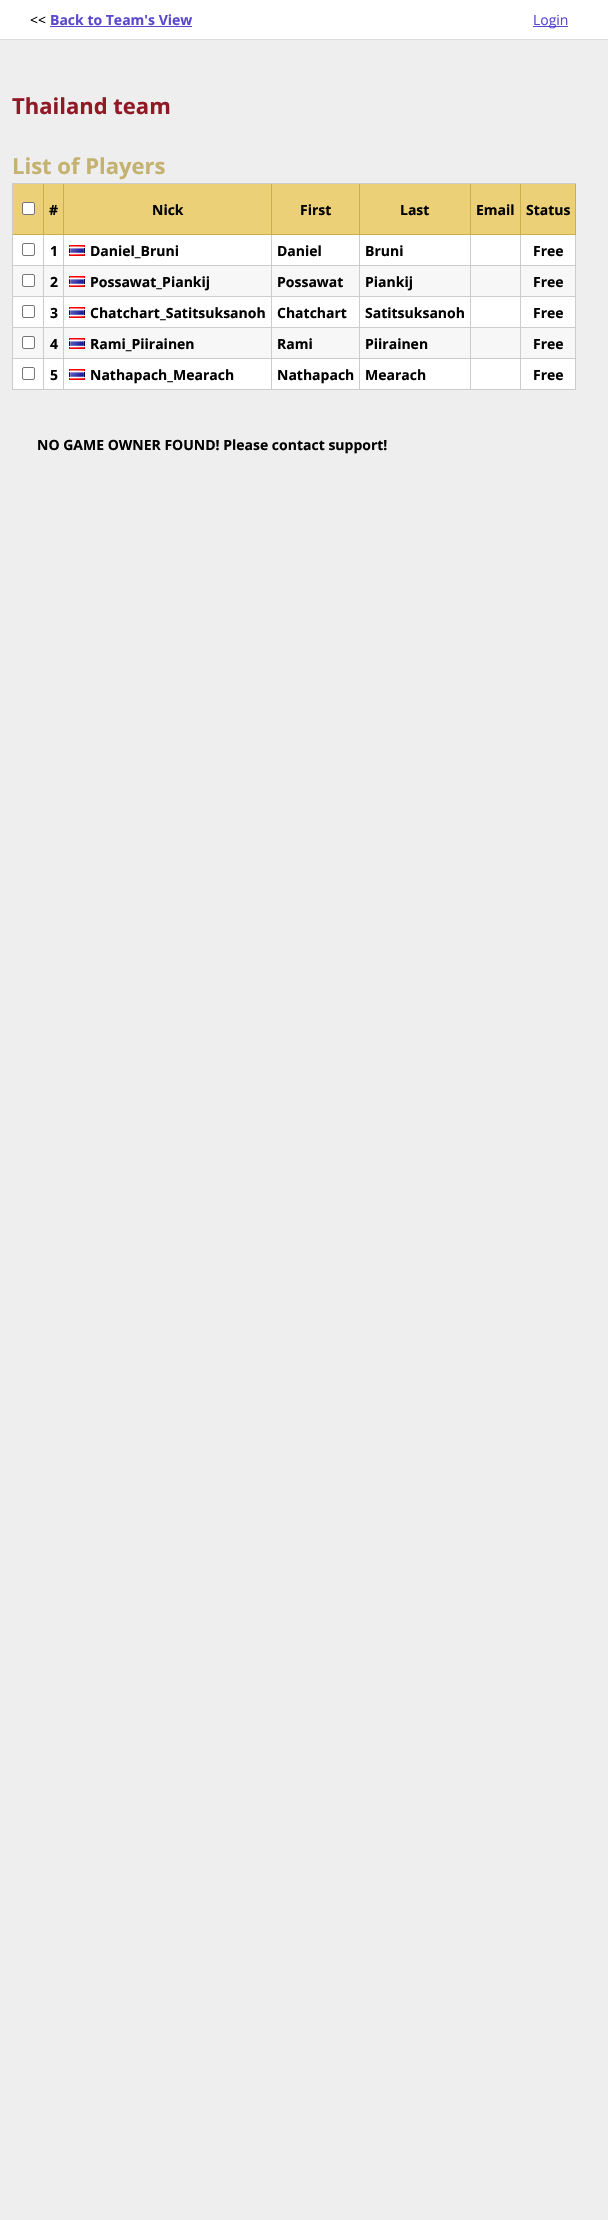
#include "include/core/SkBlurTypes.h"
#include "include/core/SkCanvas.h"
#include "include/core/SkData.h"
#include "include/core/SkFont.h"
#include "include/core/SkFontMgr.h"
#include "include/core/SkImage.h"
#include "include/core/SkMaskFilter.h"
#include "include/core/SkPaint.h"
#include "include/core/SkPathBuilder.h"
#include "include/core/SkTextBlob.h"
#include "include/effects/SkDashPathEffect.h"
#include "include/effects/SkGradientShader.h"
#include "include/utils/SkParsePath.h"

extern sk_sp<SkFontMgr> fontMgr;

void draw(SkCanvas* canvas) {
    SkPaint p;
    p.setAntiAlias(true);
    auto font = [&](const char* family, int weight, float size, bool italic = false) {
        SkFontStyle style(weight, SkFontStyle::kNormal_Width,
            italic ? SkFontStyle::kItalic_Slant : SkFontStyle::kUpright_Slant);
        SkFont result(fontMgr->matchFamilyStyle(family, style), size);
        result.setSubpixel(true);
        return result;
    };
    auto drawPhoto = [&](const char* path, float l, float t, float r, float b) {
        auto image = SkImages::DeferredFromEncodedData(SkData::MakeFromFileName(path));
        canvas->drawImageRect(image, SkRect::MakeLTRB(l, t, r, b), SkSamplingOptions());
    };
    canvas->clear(0xFFEEEEEE);
    p.setColor(0xFFFFFFFF);
    canvas->drawRect(SkRect::MakeLTRB(0, 0, 608, 39), p);
    p.setColor(0xFFDDDCDC);
    canvas->drawRect(SkRect::MakeLTRB(0, 39, 608, 40), p);
    auto font1 = font("Open Sans", 400, 14);
    p.setColor(0xFF000000);
    canvas->drawString("<<", 30, 25, font1, p);
    auto font2 = font("Open Sans", 700, 14);
    p.setColor(0xFF5A49CE);
    canvas->drawString("Back to Team's View", 50, 25, font2, p);
    canvas->drawRect(SkRect::MakeLTRB(50, 26, 192, 27), p);
    auto font3 = font("Open Sans", 700, 22);
    p.setColor(0xFF8F1925);
    canvas->drawString("Thailand team", 12, 114, font3, p);
    p.setColor(0xFFC4B270);
    canvas->drawString("List of Players", 12, 174, font3, p);
    {
        const struct { float l, t, r, b; SkColor color; } items[] = {
            {13, 235, 575, 389, 0xFFFFFFFF},
            {12, 183, 576, 184, 0xFFCCCCCC},
            {12, 183, 13, 390, 0xFFCCCCCC},
            {13, 184, 43, 234, 0xFFECD078},
            {43, 184, 44, 235, 0xFFCCAD4D},
            {13, 234, 44, 235, 0xFFCCAD4D},
        };
        for (auto [l, t, r, b, color] : items) {
            p.setColor(color);
            canvas->drawRect(SkRect::MakeLTRB(l, t, r, b), p);
        }
    }
    p.setColor(0xFFFFFFFF);
    canvas->drawRoundRect(SkRect::MakeLTRB(22.5f, 202.5f, 34.5f, 214.5f), 1.5f, 1.5f, p);
    p.setStyle(SkPaint::kStroke_Style);
    p.setStrokeWidth(1);
    p.setColor(0xFF767676);
    canvas->drawRoundRect(SkRect::MakeLTRB(22.5f, 202.5f, 34.5f, 214.5f), 1.5f, 1.5f, p);
    p.setStyle(SkPaint::kFill_Style);
    {
        const struct { float l, t, r, b; SkColor color; } items[] = {
            {44, 184, 63, 234, 0xFFECD078},
            {63, 184, 64, 235, 0xFFCCAD4D},
            {44, 234, 64, 235, 0xFFCCAD4D},
        };
        for (auto [l, t, r, b, color] : items) {
            p.setColor(color);
            canvas->drawRect(SkRect::MakeLTRB(l, t, r, b), p);
        }
    }
    p.setColor(0xFF000000);
    canvas->drawString("#", 49, 215, font2, p);
    {
        const struct { float l, t, r, b; SkColor color; } items[] = {
            {64, 184, 271, 234, 0xFFECD078},
            {271, 184, 272, 235, 0xFFCCAD4D},
            {64, 234, 272, 235, 0xFFCCAD4D},
        };
        for (auto [l, t, r, b, color] : items) {
            p.setColor(color);
            canvas->drawRect(SkRect::MakeLTRB(l, t, r, b), p);
        }
    }
    p.setColor(0xFF000000);
    canvas->drawString("Nick", 152, 215, font2, p);
    {
        const struct { float l, t, r, b; SkColor color; } items[] = {
            {272, 184, 359, 234, 0xFFECD078},
            {359, 184, 360, 235, 0xFFCCAD4D},
            {272, 234, 360, 235, 0xFFCCAD4D},
        };
        for (auto [l, t, r, b, color] : items) {
            p.setColor(color);
            canvas->drawRect(SkRect::MakeLTRB(l, t, r, b), p);
        }
    }
    p.setColor(0xFF000000);
    canvas->drawString("First", 300, 215, font2, p);
    {
        const struct { float l, t, r, b; SkColor color; } items[] = {
            {360, 184, 470, 234, 0xFFECD078},
            {470, 184, 471, 235, 0xFFCCAD4D},
            {360, 234, 471, 235, 0xFFCCAD4D},
        };
        for (auto [l, t, r, b, color] : items) {
            p.setColor(color);
            canvas->drawRect(SkRect::MakeLTRB(l, t, r, b), p);
        }
    }
    p.setColor(0xFF000000);
    canvas->drawString("Last", 400, 215, font2, p);
    {
        const struct { float l, t, r, b; SkColor color; } items[] = {
            {471, 184, 520, 234, 0xFFECD078},
            {520, 184, 521, 235, 0xFFCCAD4D},
            {471, 234, 521, 235, 0xFFCCAD4D},
        };
        for (auto [l, t, r, b, color] : items) {
            p.setColor(color);
            canvas->drawRect(SkRect::MakeLTRB(l, t, r, b), p);
        }
    }
    p.setColor(0xFF000000);
    canvas->drawString("Email", 476, 215, font2, p);
    {
        const struct { float l, t, r, b; SkColor color; } items[] = {
            {521, 184, 575, 234, 0xFFECD078},
            {575, 184, 576, 235, 0xFFCCAD4D},
            {521, 234, 576, 235, 0xFFCCAD4D},
        };
        for (auto [l, t, r, b, color] : items) {
            p.setColor(color);
            canvas->drawRect(SkRect::MakeLTRB(l, t, r, b), p);
        }
    }
    p.setColor(0xFF000000);
    canvas->drawString("Status", 526, 215, font2, p);
    p.setColor(0xFFCCCCCC);
    canvas->drawRect(SkRect::MakeLTRB(43, 235, 44, 266), p);
    canvas->drawRect(SkRect::MakeLTRB(13, 265, 44, 266), p);
    p.setStyle(SkPaint::kStroke_Style);
    p.setColor(0xFF767676);
    canvas->drawRoundRect(SkRect::MakeLTRB(22.5f, 243.5f, 34.5f, 255.5f), 1.5f, 1.5f, p);
    p.setStyle(SkPaint::kFill_Style);
    p.setColor(0xFFCCCCCC);
    canvas->drawRect(SkRect::MakeLTRB(63, 235, 64, 266), p);
    canvas->drawRect(SkRect::MakeLTRB(44, 265, 64, 266), p);
    p.setColor(0xFF000000);
    canvas->drawString("1", 50, 256, font2, p);
    p.setColor(0xFFCCCCCC);
    canvas->drawRect(SkRect::MakeLTRB(271, 235, 272, 266), p);
    canvas->drawRect(SkRect::MakeLTRB(64, 265, 272, 266), p);
    drawPhoto("media/1.png", 69, 245, 85, 256);
    p.setColor(0xFF000000);
    canvas->drawString("Daniel_Bruni", 90, 256, font2, p);
    p.setColor(0xFFCCCCCC);
    canvas->drawRect(SkRect::MakeLTRB(359, 235, 360, 266), p);
    canvas->drawRect(SkRect::MakeLTRB(272, 265, 360, 266), p);
    p.setColor(0xFF000000);
    canvas->drawString("Daniel", 277, 256, font2, p);
    p.setColor(0xFFCCCCCC);
    canvas->drawRect(SkRect::MakeLTRB(470, 235, 471, 266), p);
    canvas->drawRect(SkRect::MakeLTRB(360, 265, 471, 266), p);
    p.setColor(0xFF000000);
    canvas->drawString("Bruni", 365, 256, font2, p);
    {
        const struct { float l, t, r, b; SkColor color; } items[] = {
            {520, 235, 521, 266, 0xFFCCCCCC},
            {471, 265, 521, 266, 0xFFCCCCCC},
            {575, 235, 576, 390, 0xFFCCCCCC},
            {521, 265, 576, 266, 0xFFCCCCCC},
        };
        for (auto [l, t, r, b, color] : items) {
            p.setColor(color);
            canvas->drawRect(SkRect::MakeLTRB(l, t, r, b), p);
        }
    }
    p.setColor(0xFF000000);
    canvas->drawString("Free", 533, 256, font2, p);
    {
        const struct { float l, t, r, b; SkColor color; } items[] = {
            {13, 266, 575, 296, 0xFFF7F7F7},
            {43, 266, 44, 328, 0xFFCCCCCC},
            {13, 296, 44, 297, 0xFFCCCCCC},
        };
        for (auto [l, t, r, b, color] : items) {
            p.setColor(color);
            canvas->drawRect(SkRect::MakeLTRB(l, t, r, b), p);
        }
    }
    p.setColor(0xFFFFFFFF);
    canvas->drawRoundRect(SkRect::MakeLTRB(22.5f, 274.5f, 34.5f, 286.5f), 1.5f, 1.5f, p);
    p.setStyle(SkPaint::kStroke_Style);
    p.setColor(0xFF767676);
    canvas->drawRoundRect(SkRect::MakeLTRB(22.5f, 274.5f, 34.5f, 286.5f), 1.5f, 1.5f, p);
    p.setStyle(SkPaint::kFill_Style);
    p.setColor(0xFFCCCCCC);
    canvas->drawRect(SkRect::MakeLTRB(63, 266, 64, 328), p);
    canvas->drawRect(SkRect::MakeLTRB(44, 296, 64, 297), p);
    p.setColor(0xFF000000);
    canvas->drawString("2", 50, 287, font2, p);
    p.setColor(0xFFCCCCCC);
    canvas->drawRect(SkRect::MakeLTRB(271, 266, 272, 328), p);
    canvas->drawRect(SkRect::MakeLTRB(64, 296, 272, 297), p);
    drawPhoto("media/1.png", 69, 276, 85, 287);
    p.setColor(0xFF000000);
    canvas->drawString("Possawat_Piankij", 90, 287, font2, p);
    p.setColor(0xFFCCCCCC);
    canvas->drawRect(SkRect::MakeLTRB(359, 266, 360, 328), p);
    canvas->drawRect(SkRect::MakeLTRB(272, 296, 360, 297), p);
    p.setColor(0xFF000000);
    canvas->drawString("Possawat", 277, 287, font2, p);
    p.setColor(0xFFCCCCCC);
    canvas->drawRect(SkRect::MakeLTRB(470, 266, 471, 328), p);
    canvas->drawRect(SkRect::MakeLTRB(360, 296, 471, 297), p);
    p.setColor(0xFF000000);
    canvas->drawString("Piankij", 365, 287, font2, p);
    p.setColor(0xFFCCCCCC);
    canvas->drawRect(SkRect::MakeLTRB(520, 266, 521, 328), p);
    canvas->drawRect(SkRect::MakeLTRB(471, 296, 576, 297), p);
    p.setColor(0xFF000000);
    canvas->drawString("Free", 533, 287, font2, p);
    p.setColor(0xFFCCCCCC);
    canvas->drawRect(SkRect::MakeLTRB(13, 327, 576, 328), p);
    p.setStyle(SkPaint::kStroke_Style);
    p.setColor(0xFF767676);
    canvas->drawRoundRect(SkRect::MakeLTRB(22.5f, 305.5f, 34.5f, 317.5f), 1.5f, 1.5f, p);
    p.setStyle(SkPaint::kFill_Style);
    p.setColor(0xFF000000);
    canvas->drawString("3", 50, 318, font2, p);
    drawPhoto("media/1.png", 69, 307, 85, 318);
    {
        const struct { const char* s; float x, y; } items[] = {
            {"Chatchart_Satitsuksanoh", 90, 318},
            {"Chatchart", 277, 318},
            {"Satitsuksanoh", 365, 318},
            {"Free", 533, 318},
        };
        for (auto [s, x, y] : items) {
            canvas->drawString(s, x, y, font2, p);
        }
    }
    {
        const struct { float l, t, r, b; SkColor color; } items[] = {
            {13, 328, 575, 358, 0xFFF7F7F7},
            {43, 328, 44, 390, 0xFFCCCCCC},
            {13, 358, 44, 359, 0xFFCCCCCC},
        };
        for (auto [l, t, r, b, color] : items) {
            p.setColor(color);
            canvas->drawRect(SkRect::MakeLTRB(l, t, r, b), p);
        }
    }
    p.setColor(0xFFFFFFFF);
    canvas->drawRoundRect(SkRect::MakeLTRB(22.5f, 336.5f, 34.5f, 348.5f), 1.5f, 1.5f, p);
    p.setStyle(SkPaint::kStroke_Style);
    p.setColor(0xFF767676);
    canvas->drawRoundRect(SkRect::MakeLTRB(22.5f, 336.5f, 34.5f, 348.5f), 1.5f, 1.5f, p);
    p.setStyle(SkPaint::kFill_Style);
    p.setColor(0xFFCCCCCC);
    canvas->drawRect(SkRect::MakeLTRB(63, 328, 64, 390), p);
    canvas->drawRect(SkRect::MakeLTRB(44, 358, 64, 359), p);
    p.setColor(0xFF000000);
    canvas->drawString("4", 50, 349, font2, p);
    p.setColor(0xFFCCCCCC);
    canvas->drawRect(SkRect::MakeLTRB(271, 328, 272, 390), p);
    canvas->drawRect(SkRect::MakeLTRB(64, 358, 272, 359), p);
    drawPhoto("media/1.png", 69, 338, 85, 349);
    p.setColor(0xFF000000);
    canvas->drawString("Rami_Piirainen", 90, 349, font2, p);
    p.setColor(0xFFCCCCCC);
    canvas->drawRect(SkRect::MakeLTRB(359, 328, 360, 390), p);
    canvas->drawRect(SkRect::MakeLTRB(272, 358, 360, 359), p);
    p.setColor(0xFF000000);
    canvas->drawString("Rami", 277, 349, font2, p);
    p.setColor(0xFFCCCCCC);
    canvas->drawRect(SkRect::MakeLTRB(470, 328, 471, 390), p);
    canvas->drawRect(SkRect::MakeLTRB(360, 358, 471, 359), p);
    p.setColor(0xFF000000);
    canvas->drawString("Piirainen", 365, 349, font2, p);
    p.setColor(0xFFCCCCCC);
    canvas->drawRect(SkRect::MakeLTRB(520, 328, 521, 390), p);
    canvas->drawRect(SkRect::MakeLTRB(471, 358, 576, 359), p);
    p.setColor(0xFF000000);
    canvas->drawString("Free", 533, 349, font2, p);
    p.setColor(0xFFCCCCCC);
    canvas->drawRect(SkRect::MakeLTRB(13, 389, 576, 390), p);
    p.setStyle(SkPaint::kStroke_Style);
    p.setColor(0xFF767676);
    canvas->drawRoundRect(SkRect::MakeLTRB(22.5f, 367.5f, 34.5f, 379.5f), 1.5f, 1.5f, p);
    p.setStyle(SkPaint::kFill_Style);
    p.setColor(0xFF000000);
    canvas->drawString("5", 50, 380, font2, p);
    drawPhoto("media/1.png", 69, 369, 85, 380);
    {
        const struct { const char* s; float x, y; } items[] = {
            {"Nathapach_Mearach", 90, 380},
            {"Nathapach", 277, 380},
            {"Mearach", 365, 380},
            {"Free", 533, 380},
            {"NO GAME OWNER FOUND! Please contact support!", 37, 450},
        };
        for (auto [s, x, y] : items) {
            canvas->drawString(s, x, y, font2, p);
        }
    }
    p.setColor(0xFF5A49CE);
    canvas->drawRect(SkRect::MakeLTRB(533, 26, 568, 27), p);
    canvas->drawString("Login", 533, 25, font1, p);
}
